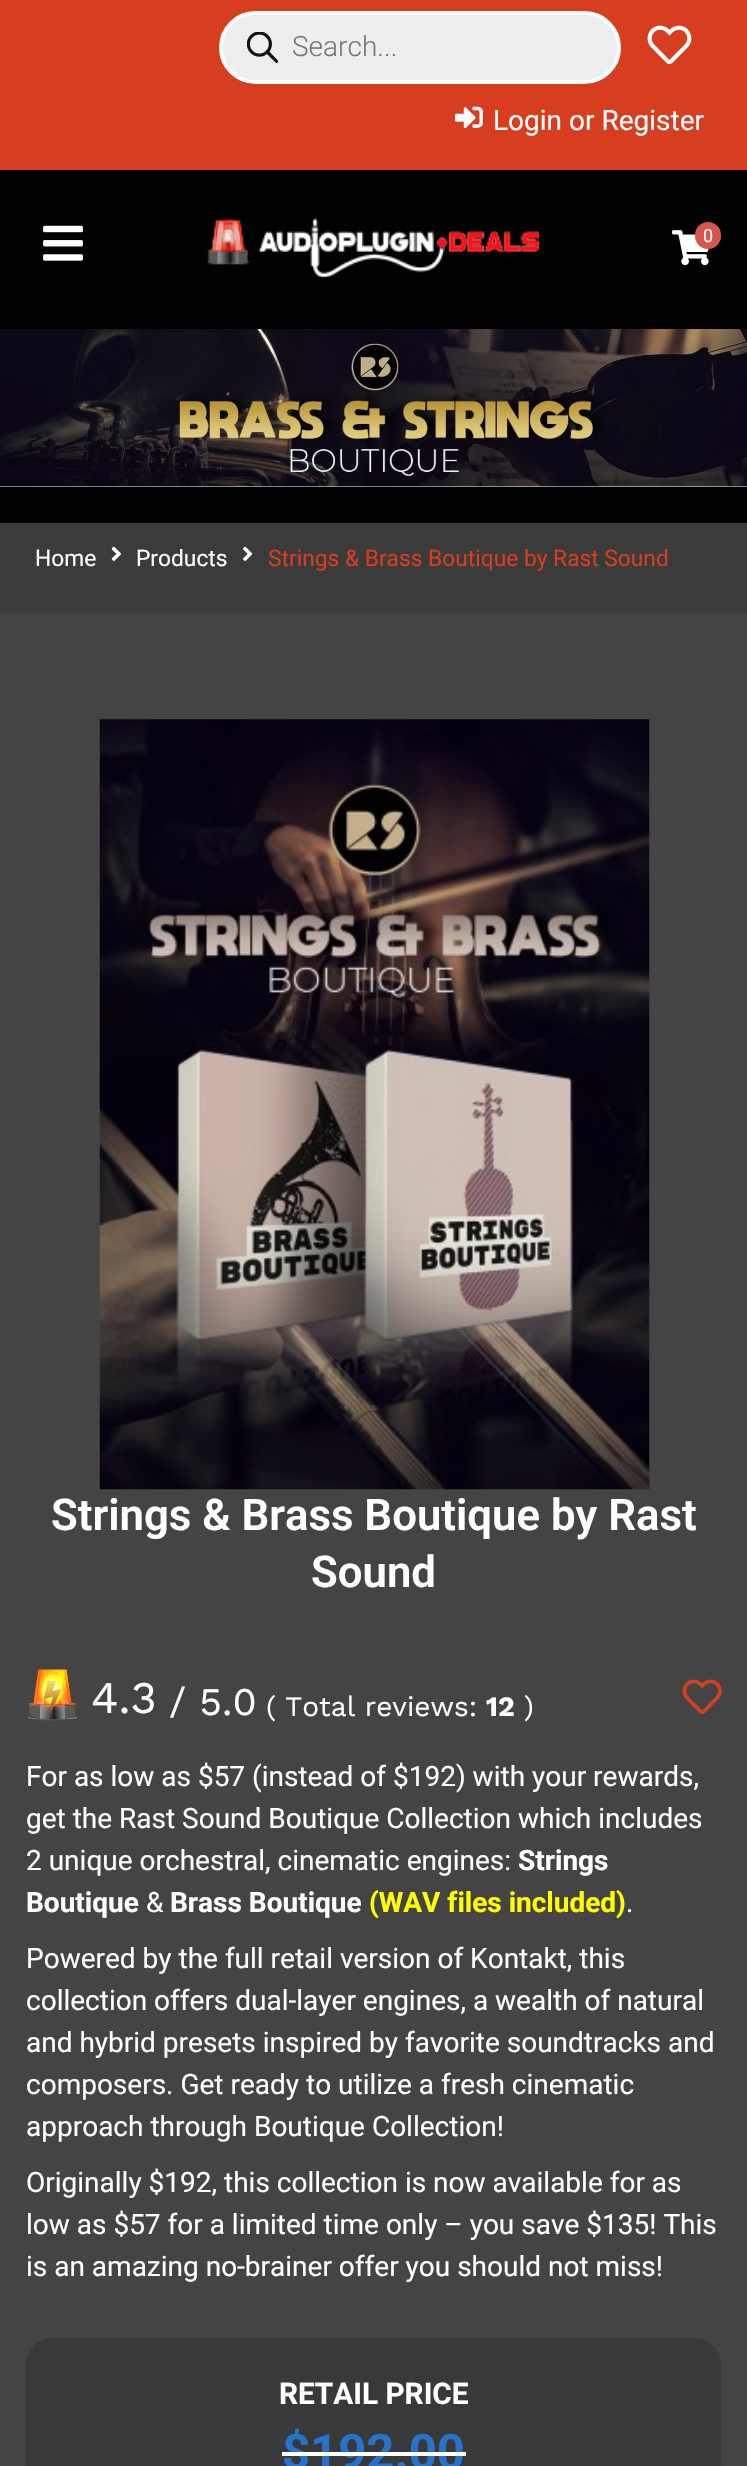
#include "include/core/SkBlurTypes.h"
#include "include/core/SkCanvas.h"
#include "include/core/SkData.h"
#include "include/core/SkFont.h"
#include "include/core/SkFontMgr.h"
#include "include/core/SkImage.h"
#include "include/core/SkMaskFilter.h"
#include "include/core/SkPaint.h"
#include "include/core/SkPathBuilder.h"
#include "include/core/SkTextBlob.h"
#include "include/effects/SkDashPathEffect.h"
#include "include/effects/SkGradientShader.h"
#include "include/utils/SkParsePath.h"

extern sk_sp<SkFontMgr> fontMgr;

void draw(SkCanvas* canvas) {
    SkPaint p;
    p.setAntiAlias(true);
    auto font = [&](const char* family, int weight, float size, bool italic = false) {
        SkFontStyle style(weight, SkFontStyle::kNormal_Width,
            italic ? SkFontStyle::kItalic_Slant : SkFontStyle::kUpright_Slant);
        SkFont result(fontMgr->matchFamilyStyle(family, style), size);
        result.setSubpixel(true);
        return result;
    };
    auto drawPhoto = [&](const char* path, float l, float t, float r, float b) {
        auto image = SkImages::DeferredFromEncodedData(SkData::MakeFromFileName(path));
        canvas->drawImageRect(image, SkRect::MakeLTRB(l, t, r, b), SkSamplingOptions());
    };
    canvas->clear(0xFFFFFFFF);
    p.setColor(0xFFD73E1F);
    canvas->drawRect(SkRect::MakeLTRB(0, 0, 747, 170), p);
    p.setColor(0xFFEEEEEE);
    canvas->drawRoundRect(SkRect::MakeLTRB(221, 13, 619, 82), 34.5f, 34.5f, p);
    p.setStyle(SkPaint::kStroke_Style);
    p.setStrokeWidth(4);
    p.setColor(0xFFFFFFFF);
    canvas->drawRoundRect(SkRect::MakeLTRB(221, 13, 619, 82), 34.5f, 34.5f, p);
    drawPhoto("media/1.png", 247, 32, 278, 63);
    auto font1 = font("Roboto", 300, 28);
    p.setStyle(SkPaint::kFill_Style);
    p.setColor(0xFF777777);
    canvas->drawString("Search...", 292, 56, font1, p);
    drawPhoto("media/2.png", 647, 25, 692, 64);
    drawPhoto("media/3.png", 455, 106, 483, 129);
    auto font2 = font("Roboto", 400, 28);
    p.setColor(0xFFFFFFFF);
    canvas->drawString("Login or Register", 493, 130, font2, p);
    p.setColor(0xFF010101);
    canvas->drawRect(SkRect::MakeLTRB(0, 170, 747, 329), p);
    drawPhoto("media/4.png", 43, 225, 83, 261);
    drawPhoto("media/5.png", 206, 218, 539, 279);
    drawPhoto("media/6.png", 672, 230, 709, 266);
    p.setColor(0xFFD9534F);
    canvas->drawRoundRect(SkRect::MakeLTRB(695, 222, 721, 249), 13, 13, p);
    auto font3 = font("Roboto", 400, 18);
    p.setColor(0xFFFFFFFF);
    canvas->drawString("0", 703, 242, font3, p);
    drawPhoto("media/7.png", 0, 329, 747, 487);
    p.setColor(0xFF010101);
    canvas->drawRect(SkRect::MakeLTRB(0, 487, 747, 523), p);
    p.setColor(0xFF3B3B3B);
    canvas->drawRect(SkRect::MakeLTRB(0, 523, 747, 613), p);
    auto font4 = font("Roboto", 400, 22.75f);
    p.setColor(0xFFFFFFFF);
    canvas->drawString("Home", 35, 566, font4, p);
    drawPhoto("media/8.png", 111, 546, 121, 561);
    canvas->drawString("Products", 136, 566, font4, p);
    drawPhoto("media/9.png", 243, 546, 253, 561);
    p.setColor(0xFFD73E1F);
    canvas->drawString("Strings & Brass Boutique by Rast Sound", 268, 566, font4, p);
    p.setColor(0xFF444444);
    canvas->drawRect(SkRect::MakeLTRB(0, 613, 747, 2466), p);
    drawPhoto("media/10.png", 99, 719, 650, 1490);
    auto font5 = font("Roboto", 600, 43.75f);
    p.setColor(0xFFFFFFFF);
    canvas->drawString("Strings & Brass Boutique by Rast", 51, 1530, font5, p);
    canvas->drawString("Sound", 311, 1587, font5, p);
    drawPhoto("media/11.png", 27, 1669, 78, 1722);
    auto font6 = font("Work Sans", 400, 45);
    canvas->drawString("4.3", 91, 1713, font6, p);
    auto font7 = font("Work Sans", 400, 39);
    canvas->drawString("/ 5.0", 169, 1715, font7, p);
    auto font8 = font("Work Sans", 400, 28);
    canvas->drawString("( Total reviews:", 266, 1716, font8, p);
    auto font9 = font("Work Sans", 700, 28);
    canvas->drawString("12", 486, 1716, font9, p);
    canvas->drawString(")", 524, 1716, font8, p);
    drawPhoto("media/12.png", 682, 1679, 722, 1714);
    {
        const struct { const char* s; float x, y; } items[] = {
            {"For as low as $57 (instead of $192) with your rewards,", 26, 1786},
            {"get the Rast Sound Boutique Collection which includes", 26, 1828},
            {"2 unique orchestral, cinematic engines:", 26, 1870},
        };
        for (auto [s, x, y] : items) {
            canvas->drawString(s, x, y, font2, p);
        }
    }
    auto font10 = font("Roboto", 700, 28);
    canvas->drawString("Strings", 518, 1870, font10, p);
    canvas->drawString("Boutique", 26, 1912, font10, p);
    canvas->drawString("&", 146, 1912, font2, p);
    canvas->drawString("Brass Boutique", 170, 1912, font10, p);
    p.setColor(0xFFFFFF00);
    canvas->drawString("(WAV files included)", 369, 1912, font10, p);
    p.setColor(0xFFFFFFFF);
    {
        const struct { const char* s; float x, y; } items[] = {
            {".", 626, 1912},
            {"Powered by the full retail version of Kontakt, this", 26, 1968},
            {"collection offers dual-layer engines, a wealth of natural", 26, 2010},
            {"and hybrid presets inspired by favorite soundtracks and", 26, 2052},
            {"composers. Get ready to utilize a fresh cinematic", 26, 2094},
            {"approach through Boutique Collection!", 26, 2136},
            {"Originally $192, this collection is now available for as", 26, 2192},
            {"low as $57 for a limited time only – you save $135! This", 26, 2234},
            {"is an amazing no-brainer offer you should not miss!", 26, 2276},
        };
        for (auto [s, x, y] : items) {
            canvas->drawString(s, x, y, font2, p);
        }
    }
    p.setColor(0xFF37393A);
    canvas->drawPath(SkPathBuilder().moveTo(52, 2338).lineTo(695, 2338).cubicTo(709.5f, 2338, 721, 2349.5f, 721, 2364).lineTo(721, 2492).lineTo(26, 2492).lineTo(26, 2364).cubicTo(26, 2349.5f, 37.5f, 2338, 52, 2338).close().detach(), p);
    auto font11 = font("Roboto", 700, 29.75f);
    p.setColor(0xFFFFFFFF);
    canvas->drawString("RETAIL PRICE", 279, 2404, font11, p);
    auto font12 = font("Roboto", 700, 49);
    p.setColor(0xFF2773C9);
    canvas->drawString("$192.00", 282, 2469, font12, p);
    p.setColor(0xFFFFFFFF);
    canvas->drawRect(SkRect::MakeLTRB(282, 2452, 466, 2456), p);
}
